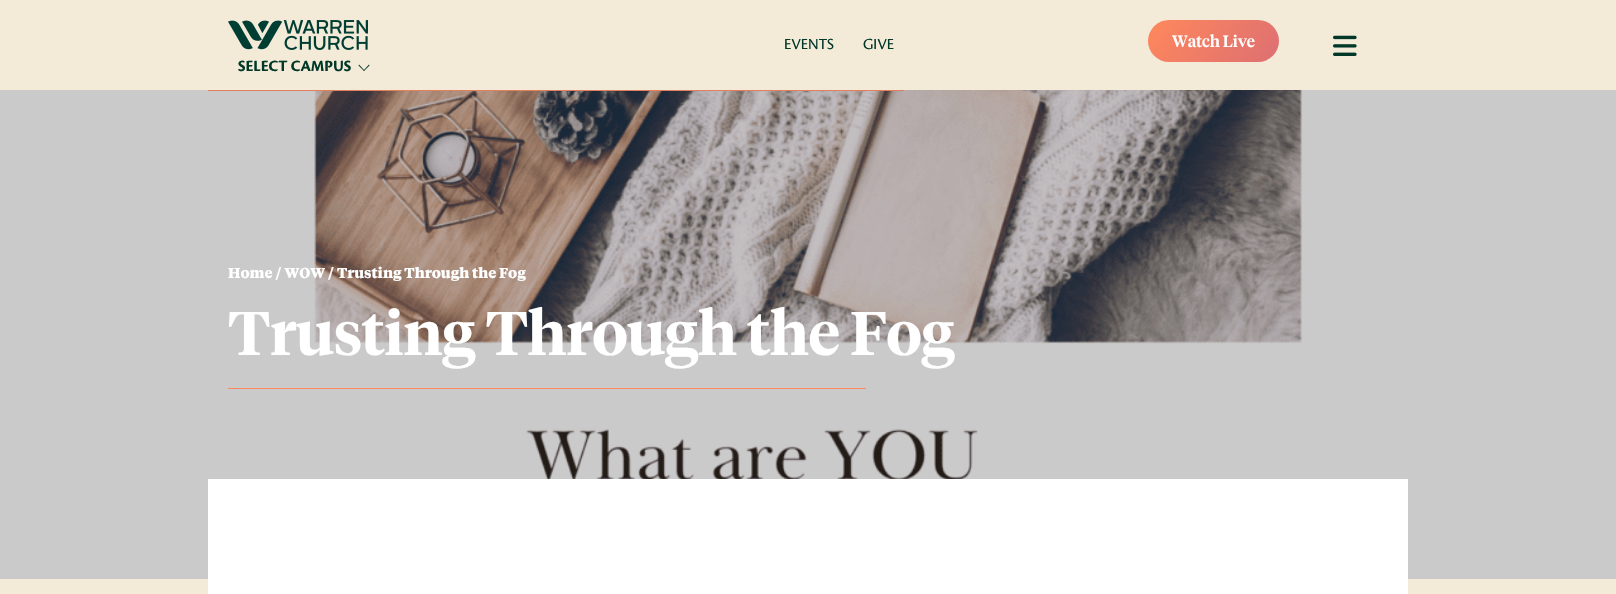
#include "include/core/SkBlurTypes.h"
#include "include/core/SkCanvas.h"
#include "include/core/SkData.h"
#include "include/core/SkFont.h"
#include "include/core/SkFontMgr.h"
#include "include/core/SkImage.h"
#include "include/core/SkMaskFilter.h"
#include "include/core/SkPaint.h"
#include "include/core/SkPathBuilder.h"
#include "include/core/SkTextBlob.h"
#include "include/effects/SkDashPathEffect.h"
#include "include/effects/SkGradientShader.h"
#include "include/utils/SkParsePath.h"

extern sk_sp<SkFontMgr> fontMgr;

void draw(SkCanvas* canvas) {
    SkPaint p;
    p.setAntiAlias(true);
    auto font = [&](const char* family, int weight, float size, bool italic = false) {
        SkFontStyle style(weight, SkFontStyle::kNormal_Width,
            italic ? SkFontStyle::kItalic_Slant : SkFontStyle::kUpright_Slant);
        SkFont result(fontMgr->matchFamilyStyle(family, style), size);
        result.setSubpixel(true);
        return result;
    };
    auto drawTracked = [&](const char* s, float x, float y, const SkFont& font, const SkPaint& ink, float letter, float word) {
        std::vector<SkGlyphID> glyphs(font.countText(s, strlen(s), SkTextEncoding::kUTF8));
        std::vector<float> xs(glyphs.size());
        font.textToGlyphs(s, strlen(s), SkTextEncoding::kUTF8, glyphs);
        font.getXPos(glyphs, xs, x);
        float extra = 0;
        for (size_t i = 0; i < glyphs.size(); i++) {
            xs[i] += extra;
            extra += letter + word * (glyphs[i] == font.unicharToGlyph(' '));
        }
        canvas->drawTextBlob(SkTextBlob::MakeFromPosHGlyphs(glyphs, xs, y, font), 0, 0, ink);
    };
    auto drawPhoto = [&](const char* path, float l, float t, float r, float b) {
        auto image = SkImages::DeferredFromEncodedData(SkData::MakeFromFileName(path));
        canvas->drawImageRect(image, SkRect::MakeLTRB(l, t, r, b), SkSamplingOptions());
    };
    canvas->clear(0xFFF3EAD8);
    auto font1 = font("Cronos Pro", 400, 16);
    p.setColor(0xFF003828);
    canvas->drawString("EVENTS", 784, 49, font1, p);
    canvas->drawString("GIVE", 863, 49, font1, p);
    {
        const SkColor colors[] = {0xFFFE885C, 0xFFDE6F72};
        const float stops[] = {0, 1};
        const SkPoint ends[] = {{1162, 1.9f}, {1265, 80}};
        p.setShader(SkGradientShader::MakeLinear(ends, colors, stops, 2, SkTileMode::kClamp));
        p.setAlpha(255);
    }
    canvas->drawRoundRect(SkRect::MakeLTRB(1148, 20, 1279, 62), 21, 21, p);
    auto font2 = font("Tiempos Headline", 500, 16.25f);
    p.setShader(nullptr);
    p.setColor(0xFFFFFFFF);
    canvas->drawString("Watch Live", 1172, 47, font2, p);
    drawPhoto("media/1.png", 1333, 35, 1357, 56);
    drawPhoto("media/2.png", 228, 20, 368, 50);
    auto font3 = font("Cronos Pro", 700, 16.25f);
    p.setColor(0xFF003828);
    canvas->drawString("SELECT CAMPUS", 238, 71, font3, p);
    canvas->drawPath(SkPathBuilder().moveTo(369, 64.5f).lineTo(369.5f, 65.5f).lineTo(364, 71).lineTo(363.5f, 70.5f).close().detach(), p);
    canvas->drawPath(SkPathBuilder().moveTo(359, 64.5f).lineTo(364.5f, 70.5f).lineTo(364, 71).lineTo(358.5f, 65.5f).close().detach(), p);
    drawPhoto("media/3.png", 0, 90, 1616, 579);
    p.setColor(0xFFE18060);
    canvas->drawRect(SkRect::MakeLTRB(208, 90, 904, 91), p);
    auto font4 = font("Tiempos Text", 700, 14.4f);
    p.setColor(0xFFFFFFFF);
    canvas->drawString("Home / WOW / Trusting Through the Fog", 228, 278, font4, p);
    auto font5 = font("Tiempos Headline", 600, 61.2f);
    drawTracked("Trusting Through the Fog", 228, 355, font5, p, -0.4f, 0);
    p.setColor(0xFFFE885C);
    canvas->drawRect(SkRect::MakeLTRB(228, 388, 866, 389), p);
    p.setColor(0xFFFFFFFF);
    canvas->drawRect(SkRect::MakeLTRB(208, 479, 1408, 594), p);
}
